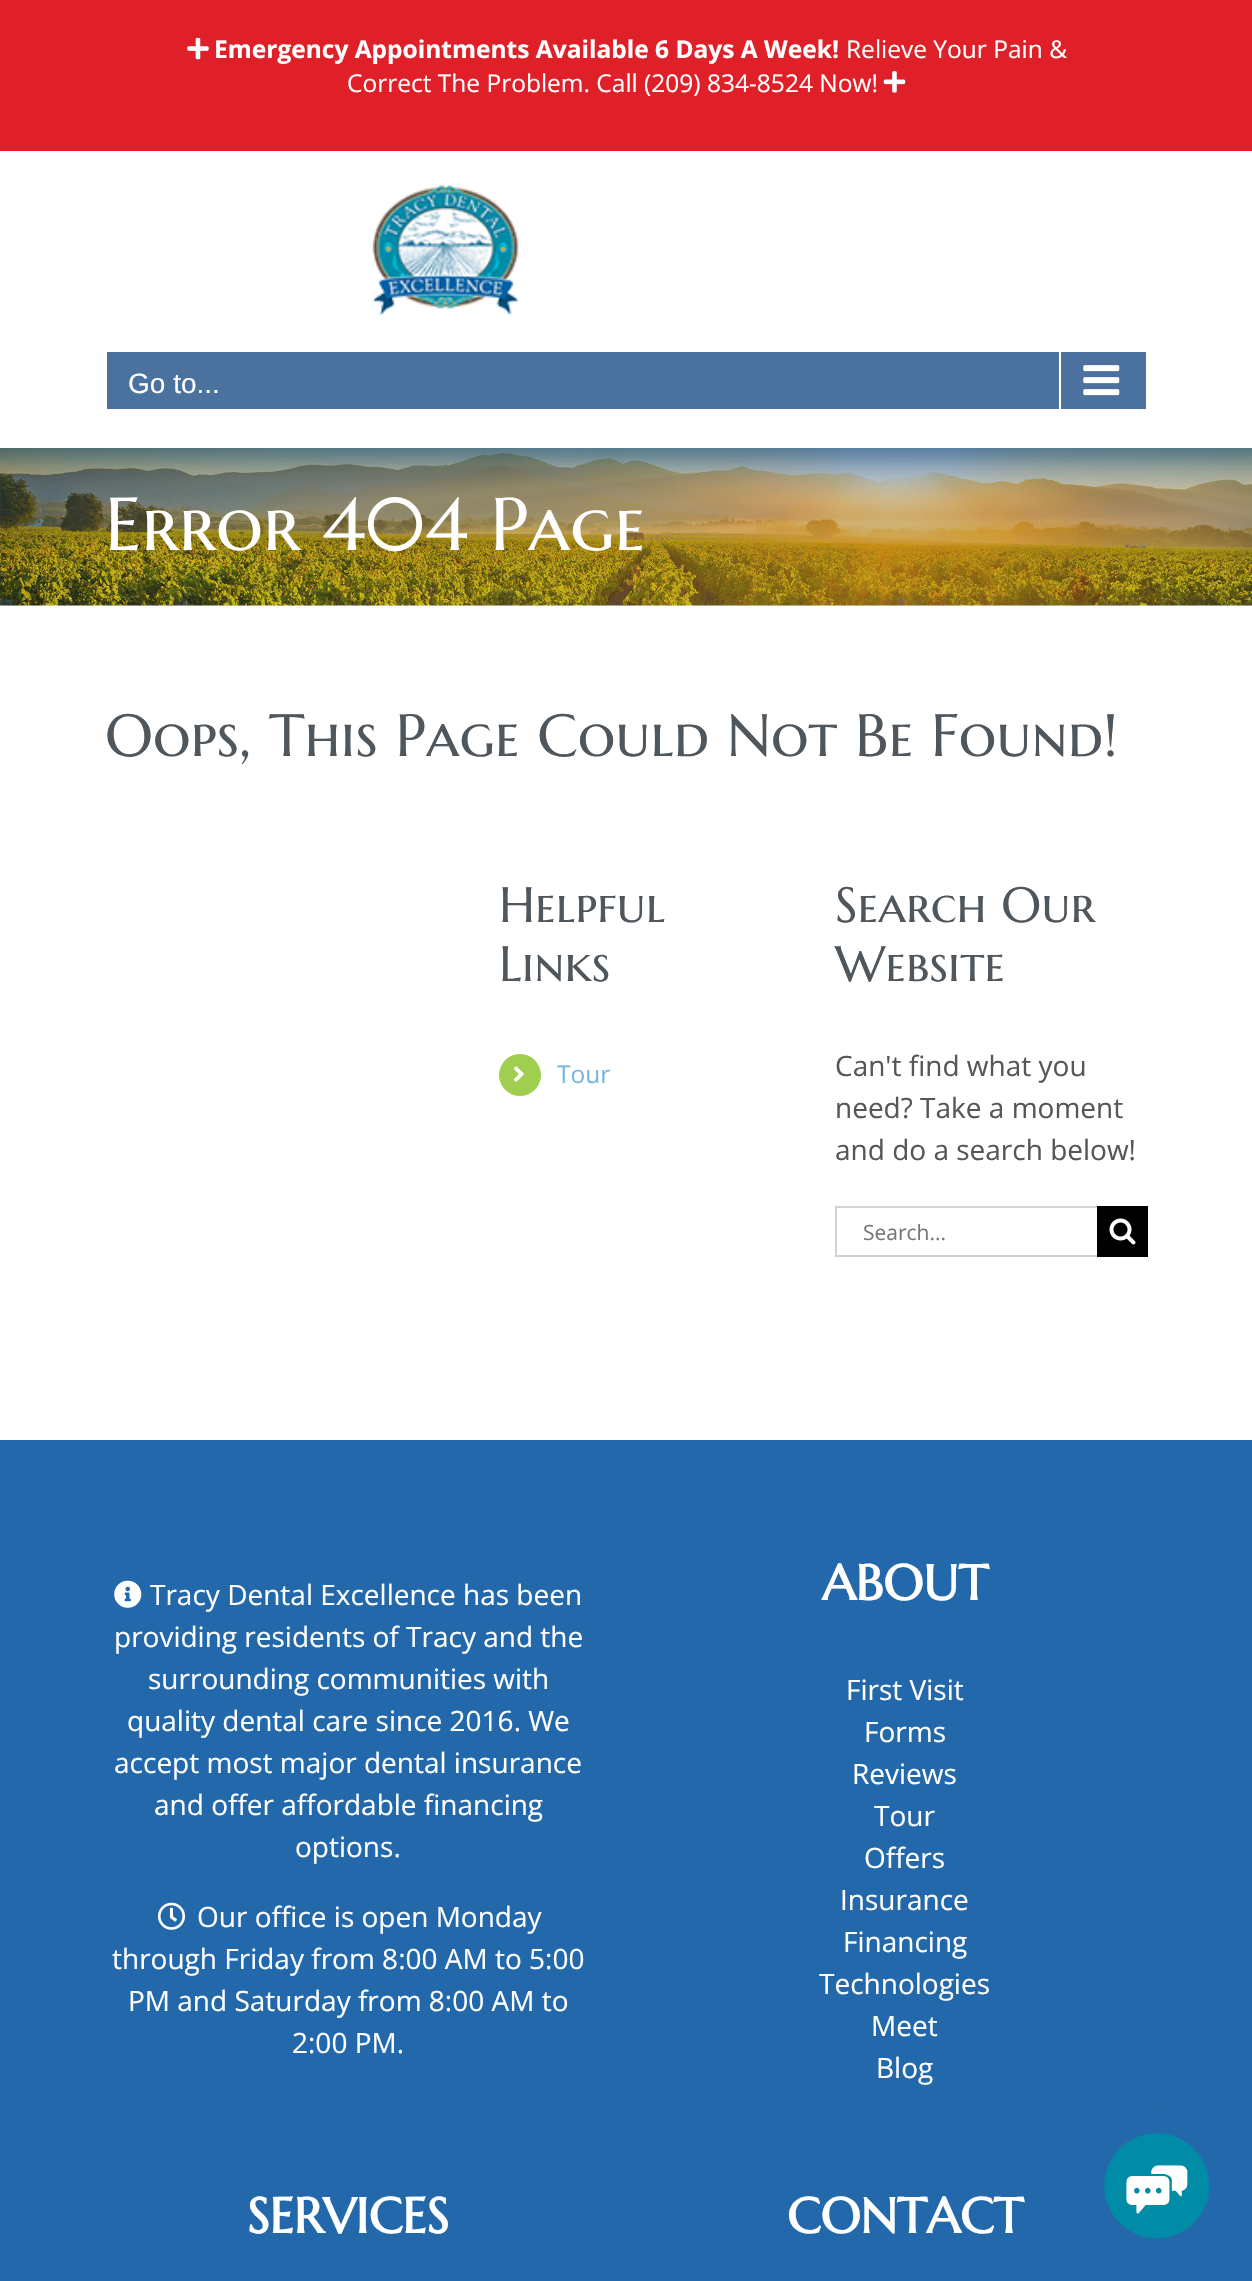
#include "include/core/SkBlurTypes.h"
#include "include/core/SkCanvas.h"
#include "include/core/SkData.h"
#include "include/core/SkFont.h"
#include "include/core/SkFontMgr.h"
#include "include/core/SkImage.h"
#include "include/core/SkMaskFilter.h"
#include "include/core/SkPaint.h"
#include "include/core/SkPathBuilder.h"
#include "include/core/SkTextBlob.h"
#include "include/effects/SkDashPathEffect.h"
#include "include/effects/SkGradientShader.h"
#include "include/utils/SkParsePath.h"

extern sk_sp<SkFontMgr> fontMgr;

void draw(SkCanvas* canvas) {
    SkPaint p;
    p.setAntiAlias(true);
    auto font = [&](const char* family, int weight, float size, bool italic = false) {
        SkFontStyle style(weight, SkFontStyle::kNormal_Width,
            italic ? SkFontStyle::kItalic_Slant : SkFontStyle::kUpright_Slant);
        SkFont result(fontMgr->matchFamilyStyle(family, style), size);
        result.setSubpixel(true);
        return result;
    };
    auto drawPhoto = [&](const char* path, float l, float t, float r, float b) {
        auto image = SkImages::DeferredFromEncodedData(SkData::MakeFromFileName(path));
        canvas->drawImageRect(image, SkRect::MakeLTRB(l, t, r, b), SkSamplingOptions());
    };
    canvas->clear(0xFFFFFFFF);
    p.setColor(0xFFDF2028);
    canvas->drawRect(SkRect::MakeLTRB(0, 0, 1252, 151), p);
    drawPhoto("media/1.png", 187, 37, 209, 60);
    auto font1 = font("Open Sans", 700, 24.5f);
    p.setColor(0xFFFFFFFF);
    canvas->drawString("Emergency Appointments Available 6 Days A Week!", 214, 58, font1, p);
    auto font2 = font("Open Sans", 400, 24.5f);
    canvas->drawString("Relieve Your Pain &", 846, 58, font2, p);
    canvas->drawString("Correct The Problem. Call (209) 834-8524 Now!", 347, 92, font2, p);
    drawPhoto("media/2.png", 883, 71, 906, 93);
    drawPhoto("media/3.png", 372, 185, 519, 315);
    p.setColor(0xFF4B729E);
    canvas->drawRect(SkRect::MakeLTRB(107, 352, 1146, 409), p);
    auto font3 = font("Liberation Sans", 400, 28);
    p.setColor(0xFFFFFFFF);
    canvas->drawString("Go to...", 128, 393, font3, p);
    canvas->drawRect(SkRect::MakeLTRB(1059, 352, 1061, 410), p);
    drawPhoto("media/4.png", 1083, 365, 1120, 396);
    p.setColor(0xFFF6F6F6);
    canvas->drawRect(SkRect::MakeLTRB(0, 605, 1252, 606), p);
    drawPhoto("media/5.png", 0, 448, 1252, 606);
    auto font4 = font("Marcellus SC", 400, 74.5f);
    p.setColor(0xFFFFFFFF);
    canvas->drawString("Error 404 Page", 105, 550, font4, p);
    auto font5 = font("Marcellus SC", 400, 59.5f);
    p.setColor(0xFF4F565C);
    canvas->drawString("Oops, This Page Could Not Be Found!", 105, 756, font5, p);
    auto font6 = font("Marcellus SC", 400, 49.5f);
    canvas->drawString("Helpful", 499, 922, font6, p);
    canvas->drawString("Links", 499, 981, font6, p);
    p.setColor(0xFFA0CE4E);
    canvas->drawCircle(520, 1075, 21, p);
    drawPhoto("media/6.png", 514, 1066, 524, 1082);
    p.setColor(0xFF76B7DA);
    canvas->drawString("Tour", 557, 1083, font2, p);
    p.setColor(0xFF4F565C);
    canvas->drawString("Search Our", 835, 922, font6, p);
    canvas->drawString("Website", 835, 981, font6, p);
    auto font7 = font("Open Sans", 400, 28);
    p.setColor(0xFF565656);
    {
        const struct { const char* s; float x, y; } items[] = {
            {"Can't find what you", 835, 1076},
            {"need? Take a moment", 835, 1118},
            {"and do a search below!", 835, 1160},
        };
        for (auto [s, x, y] : items) {
            canvas->drawString(s, x, y, font7, p);
        }
    }
    {
        const struct { float l, t, r, b; SkColor color; } items[] = {
            {835, 1206, 1097, 1208, 0xFFD2D2D2},
            {835, 1255, 1097, 1257, 0xFFD2D2D2},
            {835, 1206, 837, 1257, 0xFFD2D2D2},
        };
        for (auto [l, t, r, b, color] : items) {
            p.setColor(color);
            canvas->drawRect(SkRect::MakeLTRB(l, t, r, b), p);
        }
    }
    auto font8 = font("Open Sans", 400, 21);
    p.setColor(0xFF777777);
    canvas->drawString("Search...", 863, 1240, font8, p);
    p.setColor(0xFF000000);
    canvas->drawRect(SkRect::MakeLTRB(1097, 1206, 1148, 1257), p);
    drawPhoto("media/7.png", 1109, 1218, 1136, 1245);
    p.setColor(0xFF2268AA);
    canvas->drawRect(SkRect::MakeLTRB(0, 1440, 1252, 2281), p);
    drawPhoto("media/8.png", 114, 1580, 142, 1608);
    p.setColor(0xFFFFFFFF);
    {
        const struct { const char* s; float x, y; } items[] = {
            {"Tracy Dental Excellence has been", 150, 1605},
            {"providing residents of Tracy and the", 114, 1647},
            {"surrounding communities with", 148, 1689},
            {"quality dental care since 2016. We", 127, 1731},
            {"accept most major dental insurance", 114, 1773},
            {"and offer affordable financing", 154, 1815},
            {"options.", 295, 1857},
        };
        for (auto [s, x, y] : items) {
            canvas->drawString(s, x, y, font7, p);
        }
    }
    drawPhoto("media/9.png", 157, 1902, 186, 1930);
    {
        const struct { const char* s; float x, y; } items[] = {
            {"Our office is open Monday", 197, 1927},
            {"through Friday from 8:00 AM to 5:00", 112, 1969},
            {"PM and Saturday from 8:00 AM to", 128, 2011},
            {"2:00 PM.", 292, 2053},
        };
        for (auto [s, x, y] : items) {
            canvas->drawString(s, x, y, font7, p);
        }
    }
    auto font9 = font("Marcellus SC", 700, 49.5f);
    canvas->drawString("ABOUT", 822, 1600, font9, p);
    {
        const struct { const char* s; float x, y; } items[] = {
            {"First Visit", 846, 1700},
            {"Forms", 864, 1742},
            {"Reviews", 852, 1784},
            {"Tour", 874, 1826},
            {"Offers", 864, 1868},
            {"Insurance", 840, 1910},
            {"Financing", 843, 1952},
            {"Technologies", 819, 1994},
            {"Meet", 871, 2036},
            {"Blog", 876, 2078},
        };
        for (auto [s, x, y] : items) {
            canvas->drawString(s, x, y, font7, p);
        }
    }
    canvas->drawString("SERVICES", 247, 2233, font9, p);
    canvas->drawString("CONTACT", 787, 2233, font9, p);
    drawPhoto("media/10.png", 1103, 2107, 1210, 2239);
}
